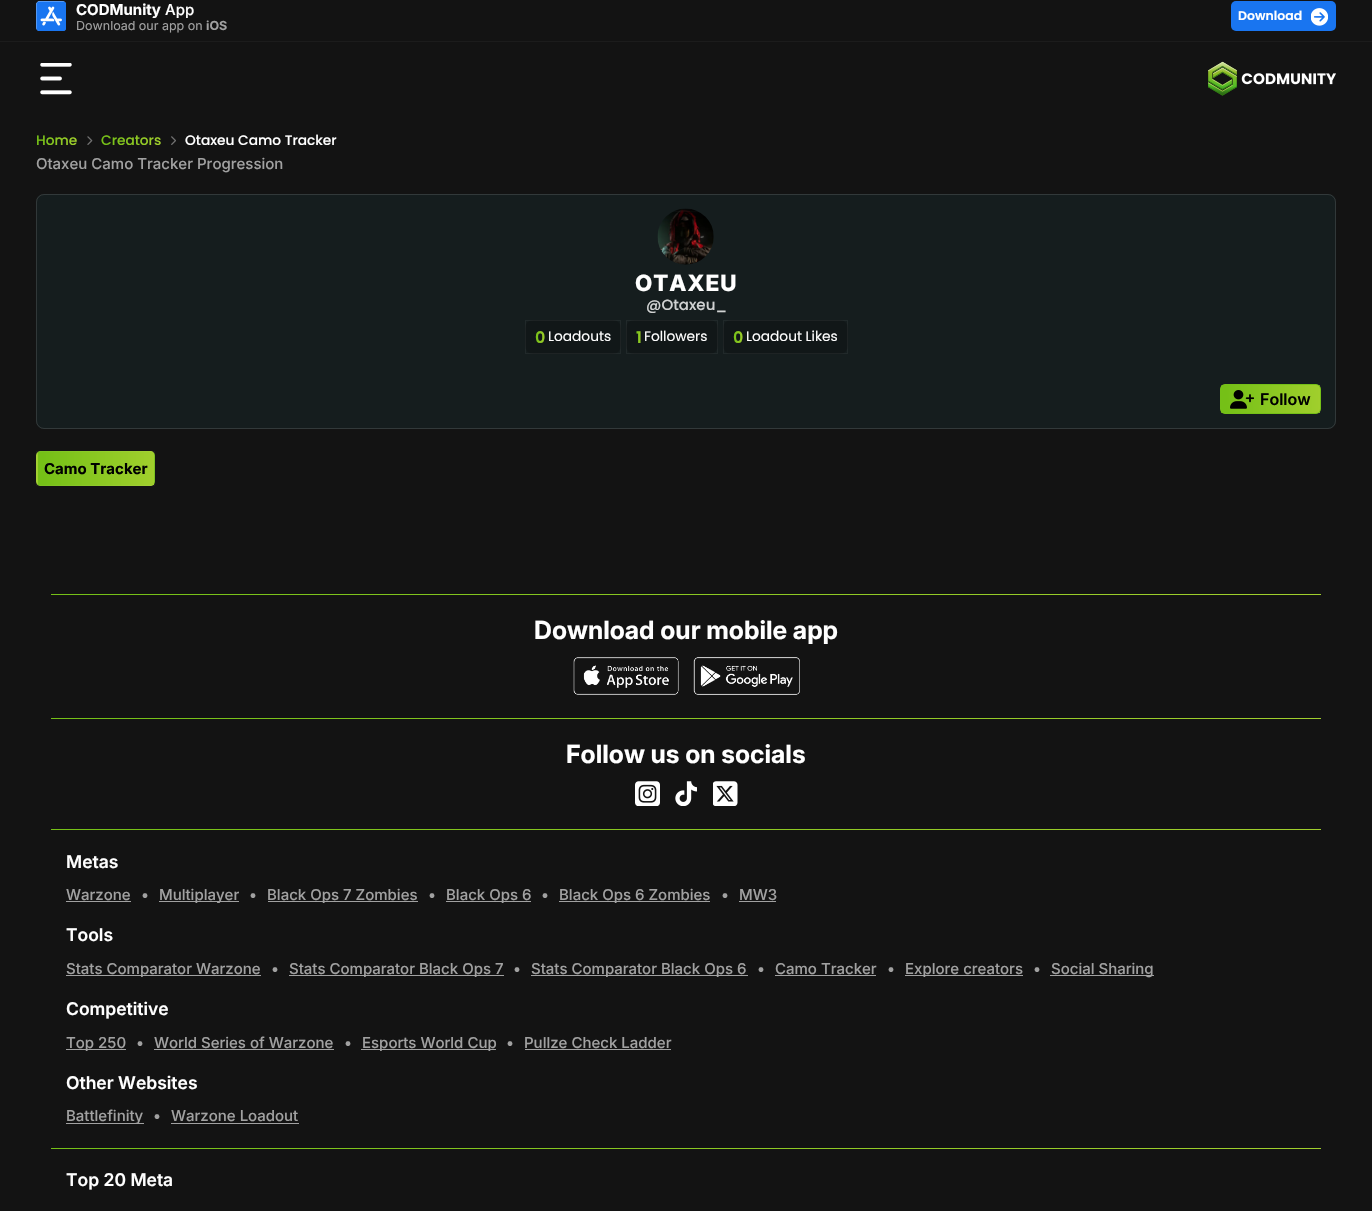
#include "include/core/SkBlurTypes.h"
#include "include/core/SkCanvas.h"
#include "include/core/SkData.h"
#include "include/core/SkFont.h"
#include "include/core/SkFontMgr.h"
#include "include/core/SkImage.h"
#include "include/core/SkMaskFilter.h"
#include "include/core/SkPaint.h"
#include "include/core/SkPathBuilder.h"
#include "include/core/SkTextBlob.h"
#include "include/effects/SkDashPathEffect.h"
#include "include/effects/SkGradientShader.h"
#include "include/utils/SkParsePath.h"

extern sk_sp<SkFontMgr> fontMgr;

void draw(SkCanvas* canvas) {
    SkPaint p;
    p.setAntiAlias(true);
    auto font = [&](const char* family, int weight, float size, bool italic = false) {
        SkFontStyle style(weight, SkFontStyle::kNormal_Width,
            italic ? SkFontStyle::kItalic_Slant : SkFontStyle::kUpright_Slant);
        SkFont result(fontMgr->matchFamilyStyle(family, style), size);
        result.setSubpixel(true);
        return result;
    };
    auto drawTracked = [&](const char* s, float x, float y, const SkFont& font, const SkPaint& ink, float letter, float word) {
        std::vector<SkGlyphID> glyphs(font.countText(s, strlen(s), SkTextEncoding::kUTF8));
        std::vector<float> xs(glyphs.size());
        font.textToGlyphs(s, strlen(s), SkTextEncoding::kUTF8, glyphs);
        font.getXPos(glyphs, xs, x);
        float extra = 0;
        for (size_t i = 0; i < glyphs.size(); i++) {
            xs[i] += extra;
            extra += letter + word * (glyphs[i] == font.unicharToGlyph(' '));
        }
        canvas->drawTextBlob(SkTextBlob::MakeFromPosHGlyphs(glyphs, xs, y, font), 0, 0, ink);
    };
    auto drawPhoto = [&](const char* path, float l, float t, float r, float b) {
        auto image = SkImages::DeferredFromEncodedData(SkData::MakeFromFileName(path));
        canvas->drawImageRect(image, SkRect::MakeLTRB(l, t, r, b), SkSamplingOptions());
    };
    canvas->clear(0xFF131313);
    p.setColor(0xFF1C1C1C);
    canvas->drawRect(SkRect::MakeLTRB(0, 41, 1372, 42), p);
    drawPhoto("media/1.png", 36, 1, 66, 31);
    auto font1 = font("Inter", 700, 15);
    p.setColor(0xFFFFFFFF);
    canvas->drawString("CODMunity", 76, 15, font1, p);
    auto font2 = font("Inter", 500, 15);
    canvas->drawString("App", 165, 15, font2, p);
    auto font3 = font("Inter", 400, 12.5f);
    p.setColor(0xFFA1A1A1);
    canvas->drawString("Download our app on", 76, 30, font3, p);
    auto font4 = font("Inter", 700, 12.5f);
    canvas->drawString("iOS", 206, 30, font4, p);
    p.setColor(0xFF1975F0);
    canvas->drawRoundRect(SkRect::MakeLTRB(1231, 1, 1336, 31), 5, 5, p);
    auto font5 = font("Poppins", 600, 12.5f);
    p.setColor(0xFFFFFFFF);
    canvas->drawString("Download", 1238, 20, font5, p);
    drawPhoto("media/2.png", 1311, 8, 1328, 26);
    drawPhoto("media/3.png", 40, 63, 72, 95);
    drawPhoto("media/4.png", 1208, 61, 1336, 96);
    auto font6 = font("Poppins", 500, 13.75f);
    {
        const SkColor colors[] = {0xFF75C017, 0xFF75C017, 0xFF83C51E, 0xFFBFD93C};
        const float stops[] = {0.03f, 0.03f, 0.21f, 1};
        const SkPoint ends[] = {{36, 141}, {106, 140}};
        p.setShader(SkGradientShader::MakeLinear(ends, colors, stops, 4, SkTileMode::kClamp));
        p.setAlpha(255);
    }
    canvas->drawString("Home", 36, 145, font6, p);
    drawPhoto("media/5.png", 87, 136, 93, 145);
    {
        const SkColor colors[] = {0xFF75C017, 0xFF75C017, 0xFF83C51E, 0xFFBFD93C};
        const float stops[] = {0.03f, 0.03f, 0.21f, 1};
        const SkPoint ends[] = {{101, 141}, {202, 139}};
        p.setShader(SkGradientShader::MakeLinear(ends, colors, stops, 4, SkTileMode::kClamp));
        p.setAlpha(255);
    }
    canvas->drawString("Creators", 101, 145, font6, p);
    drawPhoto("media/6.png", 171, 136, 176, 145);
    p.setShader(nullptr);
    p.setColor(0xFFFFFFFF);
    canvas->drawString("Otaxeu Camo Tracker", 185, 145, font6, p);
    p.setColor(0xFFA1A1A1);
    canvas->drawString("Otaxeu Camo Tracker Progression", 36, 169, font2, p);
    p.setColor(0xFF151D1E);
    canvas->drawRoundRect(SkRect::MakeLTRB(36, 194, 1336, 429), 8, 8, p);
    p.setStyle(SkPaint::kStroke_Style);
    p.setStrokeWidth(1);
    p.setColor(0x1FFFFFFF);
    canvas->drawRoundRect(SkRect::MakeLTRB(36.5f, 194.5f, 1335.5f, 428.5f), 7.5f, 7.5f, p);
    drawPhoto("media/7.png", 657, 208, 714, 265);
    auto font7 = font("Inter", 800, 22.5f);
    p.setStyle(SkPaint::kFill_Style);
    p.setColor(0xFFFFFFFF);
    drawTracked("OTAXEU", 635, 291, font7, p, 1, 0);
    auto font8 = font("Poppins", 500, 15);
    p.setColor(0xFFD0D2D2);
    canvas->drawString("@Otaxeu_", 646, 310, font8, p);
    p.setColor(0xFF111718);
    canvas->drawRoundRect(SkRect::MakeLTRB(525, 320, 621, 354), 8, 8, p);
    p.setStyle(SkPaint::kStroke_Style);
    p.setColor(0x0DFFFFFF);
    canvas->drawRect(SkRect::MakeLTRB(525.5f, 320.5f, 620.5f, 353.5f), p);
    auto font9 = font("Poppins", 600, 16);
    p.setStyle(SkPaint::kFill_Style);
    {
        const SkColor colors[] = {0xFF75C017, 0xFF75C017, 0xFF83C51E, 0xFFBFD93C};
        const float stops[] = {0.03f, 0.03f, 0.21f, 1};
        const SkPoint ends[] = {{535, 337}, {553, 337}};
        p.setShader(SkGradientShader::MakeLinear(ends, colors, stops, 4, SkTileMode::kClamp));
        p.setAlpha(255);
    }
    canvas->drawString("0", 535, 343, font9, p);
    auto font10 = font("Poppins", 400, 13.75f);
    p.setShader(nullptr);
    p.setColor(0xFFFFFFFF);
    canvas->drawString("Loadouts", 548, 341, font10, p);
    p.setColor(0xFF111718);
    canvas->drawRoundRect(SkRect::MakeLTRB(626, 320, 718, 354), 8, 8, p);
    p.setStyle(SkPaint::kStroke_Style);
    p.setColor(0x0DFFFFFF);
    canvas->drawRect(SkRect::MakeLTRB(626.5f, 320.5f, 717.5f, 353.5f), p);
    p.setStyle(SkPaint::kFill_Style);
    {
        const SkColor colors[] = {0xFF75C017, 0xFF75C017, 0xFF83C51E, 0xFFBFD93C};
        const float stops[] = {0.03f, 0.03f, 0.21f, 1};
        const SkPoint ends[] = {{636, 337}, {646, 337}};
        p.setShader(SkGradientShader::MakeLinear(ends, colors, stops, 4, SkTileMode::kClamp));
        p.setAlpha(255);
    }
    canvas->drawString("1", 636, 343, font9, p);
    p.setShader(nullptr);
    p.setColor(0xFFFFFFFF);
    canvas->drawString("Followers", 644, 341, font10, p);
    p.setColor(0xFF111718);
    canvas->drawRoundRect(SkRect::MakeLTRB(723, 320, 848, 354), 8, 8, p);
    p.setStyle(SkPaint::kStroke_Style);
    p.setColor(0x0DFFFFFF);
    canvas->drawRect(SkRect::MakeLTRB(723.5f, 320.5f, 847.5f, 353.5f), p);
    p.setStyle(SkPaint::kFill_Style);
    {
        const SkColor colors[] = {0xFF75C017, 0xFF75C017, 0xFF83C51E, 0xFFBFD93C};
        const float stops[] = {0.03f, 0.03f, 0.21f, 1};
        const SkPoint ends[] = {{733, 337}, {751, 337}};
        p.setShader(SkGradientShader::MakeLinear(ends, colors, stops, 4, SkTileMode::kClamp));
        p.setAlpha(255);
    }
    canvas->drawString("0", 733, 343, font9, p);
    p.setShader(nullptr);
    p.setColor(0xFFFFFFFF);
    canvas->drawString("Loadout Likes", 746, 341, font10, p);
    canvas->save();
    canvas->clipPath(SkPathBuilder().moveTo(1225, 384).lineTo(1316, 384).cubicTo(1319, 384, 1321, 386, 1321, 389).lineTo(1321, 409).cubicTo(1321, 412, 1319, 414, 1316, 414).lineTo(1225, 414).cubicTo(1222, 414, 1220, 412, 1220, 409).lineTo(1220, 389).cubicTo(1220, 386, 1222, 384, 1225, 384).close().detach(), true);
    {
        const SkColor colors[] = {0xFF75C017, 0xFF75C017, 0xFF83C51E, 0xFFBFD93C};
        const float stops[] = {0.03f, 0.03f, 0.21f, 1};
        const SkPoint ends[] = {{1221, 400}, {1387, 397}};
        p.setShader(SkGradientShader::MakeLinear(ends, colors, stops, 4, SkTileMode::kClamp));
        p.setAlpha(255);
    }
    canvas->drawRect(SkRect::MakeLTRB(1221, 385, 1320, 413), p);
    canvas->restore();
    p.setStyle(SkPaint::kStroke_Style);
    p.setShader(nullptr);
    p.setColor(0xFF75C017);
    canvas->drawRoundRect(SkRect::MakeLTRB(1220.5f, 384.5f, 1320.5f, 413.5f), 4.5f, 4.5f, p);
    drawPhoto("media/8.png", 1230, 390, 1254, 409);
    auto font11 = font("Inter", 600, 16);
    p.setStyle(SkPaint::kFill_Style);
    p.setColor(0xFF000000);
    canvas->drawString("Follow", 1260, 405, font11, p);
    canvas->save();
    canvas->clipPath(SkPathBuilder().moveTo(41, 451).lineTo(150, 451).cubicTo(153, 451, 155, 453, 155, 456).lineTo(155, 481).cubicTo(155, 484, 153, 486, 150, 486).lineTo(41, 486).cubicTo(38, 486, 36, 484, 36, 481).lineTo(36, 456).cubicTo(36, 453, 38, 451, 41, 451).close().detach(), true);
    {
        const SkColor colors[] = {0xFF75C017, 0xFF75C017, 0xFF83C51E, 0xFFBFD93C};
        const float stops[] = {0.03f, 0.03f, 0.21f, 1};
        const SkPoint ends[] = {{-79, 437}, {116, 434}};
        p.setShader(SkGradientShader::MakeLinear(ends, colors, stops, 4, SkTileMode::kClamp));
        p.setAlpha(255);
    }
    canvas->drawRect(SkRect::MakeLTRB(36, 452, 38, 453), p);
    {
        const SkColor colors[] = {0xFF75C017, 0xFF75C017, 0xFF83C51E, 0xFFBFD93C};
        const float stops[] = {0.03f, 0.03f, 0.21f, 1};
        const SkPoint ends[] = {{37, 437}, {233, 434}};
        p.setShader(SkGradientShader::MakeLinear(ends, colors, stops, 4, SkTileMode::kClamp));
        p.setAlpha(255);
    }
    canvas->drawRect(SkRect::MakeLTRB(38, 451, 154, 453), p);
    {
        const SkColor colors[] = {0xFF75C017, 0xFF75C017, 0xFF83C51E, 0xFFBFD93C};
        const float stops[] = {0.03f, 0.03f, 0.21f, 1};
        const SkPoint ends[] = {{-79, 470}, {116, 466}};
        p.setShader(SkGradientShader::MakeLinear(ends, colors, stops, 4, SkTileMode::kClamp));
        p.setAlpha(255);
    }
    canvas->drawRect(SkRect::MakeLTRB(36, 453, 38, 485), p);
    canvas->restore();
    {
        const SkColor colors[] = {0xFF75C017, 0xFF75C017, 0xFF83C51E, 0xFFBFD93C};
        const float stops[] = {0.03f, 0.03f, 0.21f, 1};
        const SkPoint ends[] = {{37, 470}, {233, 466}};
        p.setShader(SkGradientShader::MakeLinear(ends, colors, stops, 4, SkTileMode::kClamp));
        p.setAlpha(255);
    }
    canvas->drawRect(SkRect::MakeLTRB(38, 453, 154, 485), p);
    canvas->save();
    canvas->clipPath(SkPathBuilder().moveTo(41, 451).lineTo(150, 451).cubicTo(153, 451, 155, 453, 155, 456).lineTo(155, 481).cubicTo(155, 484, 153, 486, 150, 486).lineTo(41, 486).cubicTo(38, 486, 36, 484, 36, 481).lineTo(36, 456).cubicTo(36, 453, 38, 451, 41, 451).close().detach(), true);
    {
        const SkColor colors[] = {0xFF75C017, 0xFF75C017, 0xFF83C51E, 0xFFBFD93C};
        const float stops[] = {0.03f, 0.03f, 0.21f, 1};
        const SkPoint ends[] = {{153, 470}, {349, 466}};
        p.setShader(SkGradientShader::MakeLinear(ends, colors, stops, 4, SkTileMode::kClamp));
        p.setAlpha(255);
    }
    canvas->drawRect(SkRect::MakeLTRB(154, 453, 155, 485), p);
    {
        const SkColor colors[] = {0xFF75C017, 0xFF75C017, 0xFF83C51E, 0xFFBFD93C};
        const float stops[] = {0.03f, 0.03f, 0.21f, 1};
        const SkPoint ends[] = {{37, 502}, {233, 499}};
        p.setShader(SkGradientShader::MakeLinear(ends, colors, stops, 4, SkTileMode::kClamp));
        p.setAlpha(255);
    }
    canvas->drawRect(SkRect::MakeLTRB(38, 485, 154, 486), p);
    canvas->restore();
    p.setStyle(SkPaint::kStroke_Style);
    p.setShader(nullptr);
    p.setColor(0x0AFFFFFF);
    canvas->drawRect(SkRect::MakeLTRB(36.5f, 451.5f, 154.5f, 485.5f), p);
    p.setStyle(SkPaint::kFill_Style);
    p.setColor(0xFF000000);
    canvas->drawString("Camo Tracker", 44, 474, font1, p);
    {
        const SkColor colors[] = {0xFF75C017, 0xFF75C017, 0xFF83C51E, 0xFFBFD93C};
        const float stops[] = {0.03f, 0.03f, 0.21f, 1};
        const SkPoint ends[] = {{51, 605}, {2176, 568}};
        p.setShader(SkGradientShader::MakeLinear(ends, colors, stops, 4, SkTileMode::kClamp));
        p.setAlpha(255);
    }
    canvas->drawRect(SkRect::MakeLTRB(51, 594, 1321, 595), p);
    auto font12 = font("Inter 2", 700, 25);
    p.setShader(nullptr);
    p.setColor(0xFFFFFFFF);
    canvas->drawString("Download our mobile app", 534, 639, font12, p);
    drawPhoto("media/9.png", 573, 657, 679, 695);
    drawPhoto("media/10.png", 693, 657, 800, 695);
    {
        const SkColor colors[] = {0xFF75C017, 0xFF75C017, 0xFF83C51E, 0xFFBFD93C};
        const float stops[] = {0.03f, 0.03f, 0.21f, 1};
        const SkPoint ends[] = {{51, 729}, {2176, 692}};
        p.setShader(SkGradientShader::MakeLinear(ends, colors, stops, 4, SkTileMode::kClamp));
        p.setAlpha(255);
    }
    canvas->drawRect(SkRect::MakeLTRB(51, 718, 1321, 719), p);
    p.setShader(nullptr);
    p.setColor(0xFFFFFFFF);
    canvas->drawString("Follow us on socials", 566, 763, font12, p);
    drawPhoto("media/11.png", 635, 781, 660, 806);
    drawPhoto("media/12.png", 675, 781, 697, 806);
    drawPhoto("media/13.png", 713, 781, 738, 806);
    {
        const SkColor colors[] = {0xFF75C017, 0xFF75C017, 0xFF83C51E, 0xFFBFD93C};
        const float stops[] = {0.03f, 0.03f, 0.21f, 1};
        const SkPoint ends[] = {{51, 840}, {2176, 803}};
        p.setShader(SkGradientShader::MakeLinear(ends, colors, stops, 4, SkTileMode::kClamp));
        p.setAlpha(255);
    }
    canvas->drawRect(SkRect::MakeLTRB(51, 829, 1321, 830), p);
    auto font13 = font("Inter", 600, 17.5f);
    p.setShader(nullptr);
    p.setColor(0xFFFFFFFF);
    canvas->drawString("Metas", 66, 868, font13, p);
    p.setColor(0xFFA1A1A1);
    canvas->drawString("Warzone", 66, 900, font2, p);
    canvas->drawRect(SkRect::MakeLTRB(66, 901, 131, 902), p);
    canvas->drawString("•", 141, 900, font2, p);
    canvas->drawRect(SkRect::MakeLTRB(159, 901, 239, 902), p);
    canvas->drawString("Multiplayer", 159, 900, font2, p);
    canvas->drawString("•", 249, 900, font2, p);
    canvas->drawRect(SkRect::MakeLTRB(268, 901, 418, 902), p);
    canvas->drawString("Black Ops 7 Zombies", 267, 900, font2, p);
    canvas->drawString("•", 428, 900, font2, p);
    canvas->drawRect(SkRect::MakeLTRB(446, 901, 531, 902), p);
    canvas->drawString("Black Ops 6", 446, 900, font2, p);
    canvas->drawString("•", 541, 900, font2, p);
    canvas->drawRect(SkRect::MakeLTRB(559, 901, 710, 902), p);
    {
        const struct { const char* s; float x, y; } items[] = {
            {"Black Ops 6 Zombies", 559, 900},
            {"•", 721, 900},
            {"MW3", 739, 900},
        };
        for (auto [s, x, y] : items) {
            canvas->drawString(s, x, y, font2, p);
        }
    }
    canvas->drawRect(SkRect::MakeLTRB(739, 901, 776, 902), p);
    p.setColor(0xFFFFFFFF);
    canvas->drawString("Tools", 66, 941, font13, p);
    p.setColor(0xFFA1A1A1);
    canvas->drawRect(SkRect::MakeLTRB(66, 975, 261, 976), p);
    canvas->drawString("Stats Comparator Warzone", 66, 974, font2, p);
    canvas->drawString("•", 271, 974, font2, p);
    canvas->drawRect(SkRect::MakeLTRB(289, 975, 504, 976), p);
    canvas->drawString("Stats Comparator Black Ops 7", 289, 974, font2, p);
    canvas->drawString("•", 513, 974, font2, p);
    canvas->drawRect(SkRect::MakeLTRB(531, 975, 748, 976), p);
    {
        const struct { const char* s; float x, y; } items[] = {
            {"Stats Comparator Black Ops 6", 531, 974},
            {"•", 757, 974},
            {"Camo Tracker", 775, 974},
        };
        for (auto [s, x, y] : items) {
            canvas->drawString(s, x, y, font2, p);
        }
    }
    canvas->drawRect(SkRect::MakeLTRB(775, 975, 876, 976), p);
    canvas->drawString("•", 887, 974, font2, p);
    canvas->drawRect(SkRect::MakeLTRB(905, 975, 1023, 976), p);
    canvas->drawString("Explore creators", 905, 974, font2, p);
    canvas->drawString("•", 1033, 974, font2, p);
    canvas->drawRect(SkRect::MakeLTRB(1050, 975, 1154, 976), p);
    canvas->drawString("Social Sharing", 1051, 974, font2, p);
    p.setColor(0xFFFFFFFF);
    canvas->drawString("Competitive", 66, 1015, font13, p);
    p.setColor(0xFFA1A1A1);
    canvas->drawRect(SkRect::MakeLTRB(66, 1049, 126, 1050), p);
    {
        const struct { const char* s; float x, y; } items[] = {
            {"Top 250", 66, 1048},
            {"•", 136, 1048},
            {"World Series of Warzone", 154, 1048},
        };
        for (auto [s, x, y] : items) {
            canvas->drawString(s, x, y, font2, p);
        }
    }
    canvas->drawRect(SkRect::MakeLTRB(154, 1049, 334, 1050), p);
    canvas->drawString("•", 344, 1048, font2, p);
    canvas->drawRect(SkRect::MakeLTRB(361, 1049, 496, 1050), p);
    {
        const struct { const char* s; float x, y; } items[] = {
            {"Esports World Cup", 362, 1048},
            {"•", 506, 1048},
            {"Pullze Check Ladder", 524, 1048},
        };
        for (auto [s, x, y] : items) {
            canvas->drawString(s, x, y, font2, p);
        }
    }
    canvas->drawRect(SkRect::MakeLTRB(525, 1049, 671, 1050), p);
    p.setColor(0xFFFFFFFF);
    canvas->drawString("Other Websites", 66, 1089, font13, p);
    p.setColor(0xFFA1A1A1);
    canvas->drawRect(SkRect::MakeLTRB(66, 1123, 144, 1124), p);
    {
        const struct { const char* s; float x, y; } items[] = {
            {"Battlefinity", 66, 1121},
            {"•", 153, 1121},
            {"Warzone Loadout", 171, 1121},
        };
        for (auto [s, x, y] : items) {
            canvas->drawString(s, x, y, font2, p);
        }
    }
    canvas->drawRect(SkRect::MakeLTRB(171, 1123, 299, 1124), p);
    {
        const SkColor colors[] = {0xFF75C017, 0xFF75C017, 0xFF83C51E, 0xFFBFD93C};
        const float stops[] = {0.03f, 0.03f, 0.21f, 1};
        const SkPoint ends[] = {{51, 1159}, {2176, 1122}};
        p.setShader(SkGradientShader::MakeLinear(ends, colors, stops, 4, SkTileMode::kClamp));
        p.setAlpha(255);
    }
    canvas->drawRect(SkRect::MakeLTRB(51, 1148, 1321, 1149), p);
    p.setShader(nullptr);
    p.setColor(0xFFFFFFFF);
    canvas->drawString("Top 20 Meta", 66, 1186, font13, p);
}
